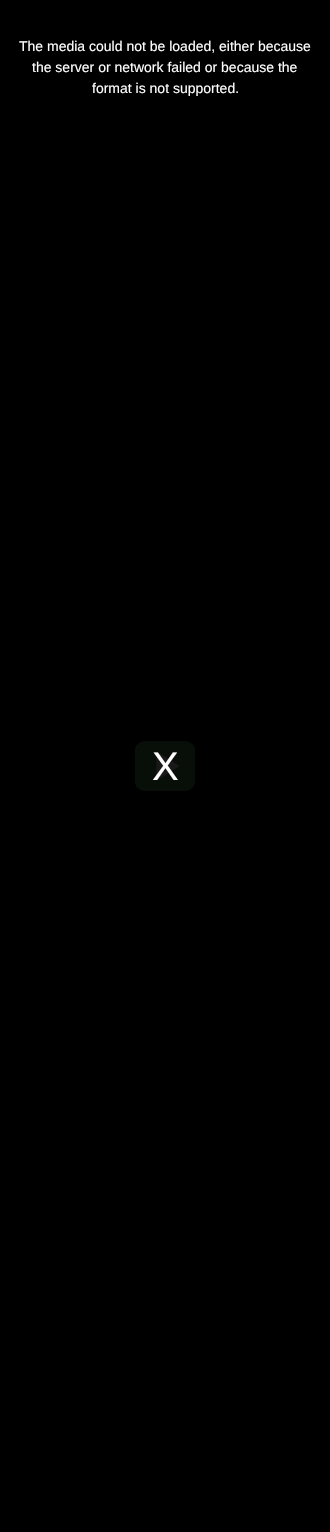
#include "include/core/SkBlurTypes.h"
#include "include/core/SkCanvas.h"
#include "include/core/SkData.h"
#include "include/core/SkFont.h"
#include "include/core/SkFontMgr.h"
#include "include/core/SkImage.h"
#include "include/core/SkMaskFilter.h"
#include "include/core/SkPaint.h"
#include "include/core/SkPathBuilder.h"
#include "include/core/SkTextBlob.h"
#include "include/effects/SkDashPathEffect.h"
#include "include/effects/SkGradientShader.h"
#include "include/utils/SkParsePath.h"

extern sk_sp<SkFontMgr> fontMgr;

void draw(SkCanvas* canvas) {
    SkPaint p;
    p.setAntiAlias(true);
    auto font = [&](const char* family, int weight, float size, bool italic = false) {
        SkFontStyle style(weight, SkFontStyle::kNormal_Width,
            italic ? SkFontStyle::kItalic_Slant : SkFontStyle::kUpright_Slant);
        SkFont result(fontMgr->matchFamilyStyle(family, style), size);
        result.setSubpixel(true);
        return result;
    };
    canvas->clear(0xFF000000);
    auto font1 = font("Liberation Sans", 400, 14);
    p.setColor(0xFFFFFFFF);
    {
        const struct { const char* s; float x, y; } items[] = {
            {"The media could not be loaded, either because", 19, 51},
            {"the server or network failed or because the", 32, 72},
            {"format is not supported.", 92, 93},
        };
        for (auto [s, x, y] : items) {
            canvas->drawString(s, x, y, font1, p);
        }
    }
    p.setColor(0xFF080E08);
    canvas->drawPath(SkPathBuilder().moveTo(146, 741).lineTo(184, 741).cubicTo(190, 741, 195, 745, 195, 750).lineTo(195, 782).cubicTo(195, 787, 190, 791, 184, 791).lineTo(146, 791).cubicTo(140, 791, 135, 787, 135, 782).lineTo(135, 750).cubicTo(135, 745, 140, 741, 146, 741).close().detach(), p);
    p.setColor(0xFF191919);
    canvas->drawPath(SkPathBuilder().moveTo(156.5f, 751.5f).lineTo(156.5f, 780.5f).lineTo(179.5f, 766).close().detach(), p);
    auto font2 = font("Liberation Sans", 400, 40);
    p.setColor(0xFFFFFFFF);
    canvas->drawString("X", 152, 780, font2, p);
}
